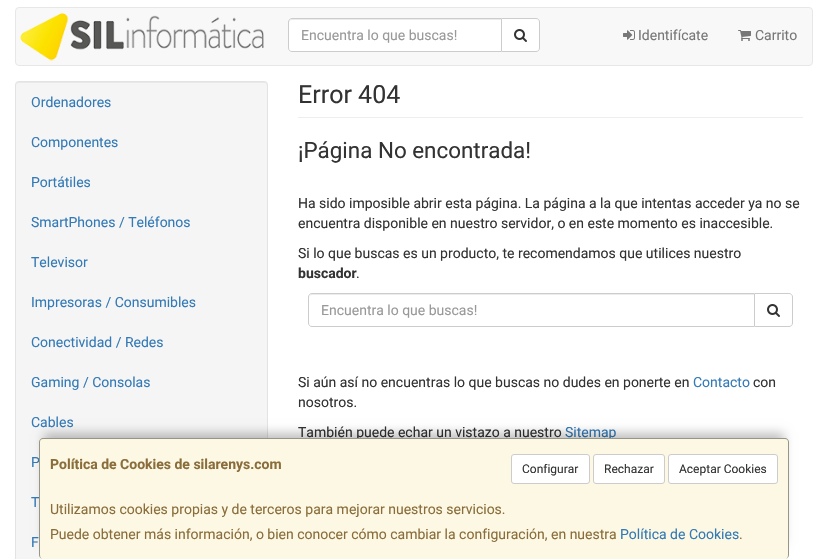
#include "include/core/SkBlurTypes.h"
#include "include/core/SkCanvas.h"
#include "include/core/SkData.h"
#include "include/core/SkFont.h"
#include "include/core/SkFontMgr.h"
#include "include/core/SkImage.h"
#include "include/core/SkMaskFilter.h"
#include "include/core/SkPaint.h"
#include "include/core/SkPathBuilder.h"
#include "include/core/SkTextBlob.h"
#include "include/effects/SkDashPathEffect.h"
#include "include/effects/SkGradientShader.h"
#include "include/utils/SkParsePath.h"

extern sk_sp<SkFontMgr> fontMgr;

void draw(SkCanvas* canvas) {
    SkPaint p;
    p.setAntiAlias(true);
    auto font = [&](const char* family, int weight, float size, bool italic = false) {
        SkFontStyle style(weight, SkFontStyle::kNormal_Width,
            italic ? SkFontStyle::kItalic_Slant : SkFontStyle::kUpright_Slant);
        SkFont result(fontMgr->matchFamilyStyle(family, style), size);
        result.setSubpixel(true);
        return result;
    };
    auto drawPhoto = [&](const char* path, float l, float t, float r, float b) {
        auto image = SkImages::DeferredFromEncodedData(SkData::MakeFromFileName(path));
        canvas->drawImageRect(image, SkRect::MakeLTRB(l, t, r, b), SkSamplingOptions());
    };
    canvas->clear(0xFFFFFFFF);
    p.setColor(0xFFF8F8F8);
    canvas->drawRoundRect(SkRect::MakeLTRB(15.5f, 7.5f, 812.5f, 65.5f), 3.5f, 3.5f, p);
    p.setStyle(SkPaint::kStroke_Style);
    p.setStrokeWidth(1);
    p.setColor(0xFFE7E7E7);
    canvas->drawRoundRect(SkRect::MakeLTRB(15.5f, 7.5f, 812.5f, 65.5f), 3.5f, 3.5f, p);
    drawPhoto("media/1.png", 20, 12, 264, 61);
    p.setStyle(SkPaint::kFill_Style);
    p.setColor(0xFFFFFFFF);
    canvas->drawPath(SkPathBuilder().moveTo(501.5f, 18.5f).lineTo(536, 18.5f).cubicTo(538, 18.5f, 539.5f, 20, 539.5f, 22).lineTo(539.5f, 48).cubicTo(539.5f, 50, 538, 51.5f, 536, 51.5f).lineTo(501.5f, 51.5f).close().detach(), p);
    p.setStyle(SkPaint::kStroke_Style);
    p.setColor(0xFFCCCCCC);
    canvas->drawPath(SkPathBuilder().moveTo(501.5f, 18.5f).lineTo(536, 18.5f).cubicTo(538, 18.5f, 539.5f, 20, 539.5f, 22).lineTo(539.5f, 48).cubicTo(539.5f, 50, 538, 51.5f, 536, 51.5f).lineTo(501.5f, 51.5f).close().detach(), p);
    p.setStyle(SkPaint::kFill_Style);
    p.setColor(0xFFFFFFFF);
    canvas->drawPath(SkPathBuilder().moveTo(292, 18).lineTo(502, 18).lineTo(502, 52).lineTo(292, 52).cubicTo(290, 52, 288, 50, 288, 48).lineTo(288, 22).cubicTo(288, 20, 290, 18, 292, 18).close().detach(), p);
    p.setColor(0xFFECECEC);
    canvas->drawPath(SkPathBuilder().moveTo(292, 20).lineTo(501, 20).lineTo(501, 19).lineTo(292, 19).cubicTo(290, 19, 289, 20, 289, 22).lineTo(289, 23).cubicTo(289, 21, 290, 20, 292, 20).close().detach(), p);
    p.setStyle(SkPaint::kStroke_Style);
    p.setColor(0xFFCCCCCC);
    canvas->drawPath(SkPathBuilder().moveTo(292, 18.5f).lineTo(501.5f, 18.5f).lineTo(501.5f, 51.5f).lineTo(292, 51.5f).cubicTo(290, 51.5f, 288.5f, 50, 288.5f, 48).lineTo(288.5f, 22).cubicTo(288.5f, 20, 290, 18.5f, 292, 18.5f).close().detach(), p);
    auto font1 = font("Roboto", 400, 14);
    p.setStyle(SkPaint::kFill_Style);
    p.setColor(0xFF999999);
    canvas->drawString("Encuentra lo que buscas!", 301, 40, font1, p);
    drawPhoto("media/2.png", 514, 29, 527, 42);
    drawPhoto("media/3.png", 623, 30, 635, 40);
    p.setColor(0xFF777777);
    canvas->drawString("Identifícate", 638, 40, font1, p);
    drawPhoto("media/4.png", 738, 30, 751, 41);
    canvas->drawString("Carrito", 755, 40, font1, p);
    p.setColor(0xFFF5F5F5);
    canvas->drawRoundRect(SkRect::MakeLTRB(15, 81, 268, 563), 4, 4, p);
    p.setColor(0xFFE9E9E9);
    canvas->drawPath(SkPathBuilder().moveTo(19, 83).lineTo(265, 83).lineTo(267, 84).lineTo(267, 86).cubicTo(267, 84, 266, 82, 264, 82).lineTo(19, 82).cubicTo(17, 82, 16, 84, 16, 86).cubicTo(16, 84, 17, 83, 19, 83).close().detach(), p);
    p.setStyle(SkPaint::kStroke_Style);
    p.setColor(0xFFE3E3E3);
    canvas->drawRoundRect(SkRect::MakeLTRB(15.5f, 81.5f, 267.5f, 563.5f), 3.5f, 3.5f, p);
    p.setStyle(SkPaint::kFill_Style);
    p.setColor(0xFF337AB7);
    {
        const struct { const char* s; float x, y; } items[] = {
            {"Ordenadores", 31, 107},
            {"Componentes", 31, 147},
            {"Portátiles", 31, 187},
            {"SmartPhones / Teléfonos", 31, 227},
            {"Televisor", 31, 267},
            {"Impresoras / Consumibles", 31, 307},
            {"Conectividad / Redes", 31, 347},
            {"Gaming / Consolas", 31, 387},
            {"Cables", 31, 427},
            {"P", 31, 467},
            {"T", 31, 507},
            {"F", 31, 547},
        };
        for (auto [s, x, y] : items) {
            canvas->drawString(s, x, y, font1, p);
        }
    }
    p.setColor(0xFFEEEEEE);
    canvas->drawRect(SkRect::MakeLTRB(298, 117, 803, 118), p);
    auto font2 = font("Roboto", 400, 25);
    p.setColor(0xFF333333);
    canvas->drawString("Error 404", 298, 103, font2, p);
    auto font3 = font("Roboto", 400, 22.4f);
    canvas->drawString("¡Página No encontrada!", 298, 158, font3, p);
    {
        const struct { const char* s; float x, y; } items[] = {
            {"Ha sido imposible abrir esta página. La página a la que intentas acceder ya no se", 298, 208},
            {"encuentra disponible en nuestro servidor, o en este momento es inaccesible.", 298, 228},
            {"Si lo que buscas es un producto, te recomendamos que utilices nuestro", 298, 258},
        };
        for (auto [s, x, y] : items) {
            canvas->drawString(s, x, y, font1, p);
        }
    }
    auto font4 = font("Roboto", 700, 14);
    canvas->drawString("buscador", 298, 278, font4, p);
    canvas->drawString(".", 356, 278, font1, p);
    p.setStyle(SkPaint::kStroke_Style);
    p.setColor(0xFFCCCCCC);
    canvas->drawPath(SkPathBuilder().moveTo(754.5f, 293.5f).lineTo(789, 293.5f).cubicTo(791, 293.5f, 792.5f, 295, 792.5f, 297).lineTo(792.5f, 323).cubicTo(792.5f, 325, 791, 326.5f, 789, 326.5f).lineTo(754.5f, 326.5f).close().detach(), p);
    p.setStyle(SkPaint::kFill_Style);
    p.setColor(0xFFFFFFFF);
    canvas->drawPath(SkPathBuilder().moveTo(312, 293).lineTo(755, 293).lineTo(755, 327).lineTo(312, 327).cubicTo(310, 327, 308, 325, 308, 323).lineTo(308, 297).cubicTo(308, 295, 310, 293, 312, 293).close().detach(), p);
    p.setColor(0xFFECECEC);
    canvas->drawPath(SkPathBuilder().moveTo(312, 295).lineTo(754, 295).lineTo(754, 294).lineTo(312, 294).cubicTo(310, 294, 309, 296, 309, 298).cubicTo(309, 296, 310, 295, 312, 295).close().detach(), p);
    p.setStyle(SkPaint::kStroke_Style);
    p.setColor(0xFFCCCCCC);
    canvas->drawPath(SkPathBuilder().moveTo(312, 293.5f).lineTo(754.5f, 293.5f).lineTo(754.5f, 326.5f).lineTo(312, 326.5f).cubicTo(310, 326.5f, 308.5f, 325, 308.5f, 323).lineTo(308.5f, 297).cubicTo(308.5f, 295, 310, 293.5f, 312, 293.5f).close().detach(), p);
    p.setStyle(SkPaint::kFill_Style);
    p.setColor(0xFF999999);
    canvas->drawString("Encuentra lo que buscas!", 321, 315, font1, p);
    drawPhoto("media/2.png", 767, 304, 780, 317);
    p.setColor(0xFF333333);
    canvas->drawString("Si aún así no encuentras lo que buscas no dudes en ponerte en", 298, 387, font1, p);
    p.setColor(0xFF337AB7);
    canvas->drawString("Contacto", 693, 387, font1, p);
    p.setColor(0xFF333333);
    {
        const struct { const char* s; float x, y; } items[] = {
            {"con", 753, 387},
            {"nosotros.", 298, 407},
            {"También puede echar un vistazo a nuestro", 298, 437},
        };
        for (auto [s, x, y] : items) {
            canvas->drawString(s, x, y, font1, p);
        }
    }
    p.setColor(0xFF337AB7);
    canvas->drawString("Sitemap", 565, 437, font1, p);
    p.setColor(0x40000000);
    p.setMaskFilter(SkMaskFilter::MakeBlur(kNormal_SkBlurStyle, 5));
    canvas->drawRect(SkRect::MakeLTRB(44, 433, 784, 544), p);
    p.setMaskFilter(nullptr);
    p.setColor(0xFFFCF8E3);
    canvas->drawRoundRect(SkRect::MakeLTRB(39, 438, 789, 559), 4, 4, p);
    p.setColor(0x66000000);
    canvas->drawPath(SkPathBuilder(SkPathFillType::kEvenOdd).moveTo(43, 438).lineTo(785, 438).cubicTo(787, 438, 789, 440, 789, 442).lineTo(789, 555).cubicTo(789, 557, 787, 559, 785, 559).lineTo(43, 559).cubicTo(41, 559, 39, 557, 39, 555).lineTo(39, 442).cubicTo(39, 440, 41, 438, 43, 438).close().moveTo(43, 439).lineTo(785, 439).cubicTo(787, 439, 788, 440, 788, 442).lineTo(788, 555).cubicTo(788, 557, 787, 559, 785, 559).lineTo(43, 559).cubicTo(41, 559, 40, 557, 40, 555).lineTo(40, 442).cubicTo(40, 440, 41, 439, 43, 439).close().detach(), p);
    p.setColor(0xFF8A6D3B);
    canvas->drawString("Política de Cookies de silarenys.com", 50, 469, font4, p);
    p.setColor(0xFFFFFFFF);
    canvas->drawRoundRect(SkRect::MakeLTRB(511.5f, 454.5f, 589.5f, 483.5f), 2.5f, 2.5f, p);
    p.setStyle(SkPaint::kStroke_Style);
    p.setColor(0xFFCCCCCC);
    canvas->drawRoundRect(SkRect::MakeLTRB(511.5f, 454.5f, 589.5f, 483.5f), 2.5f, 2.5f, p);
    auto font5 = font("Roboto", 400, 12);
    p.setStyle(SkPaint::kFill_Style);
    p.setColor(0xFF333333);
    canvas->drawString("Configurar", 522, 473, font5, p);
    p.setColor(0xFFFFFFFF);
    canvas->drawRoundRect(SkRect::MakeLTRB(593.5f, 454.5f, 664.5f, 483.5f), 2.5f, 2.5f, p);
    p.setStyle(SkPaint::kStroke_Style);
    p.setColor(0xFFCCCCCC);
    canvas->drawRoundRect(SkRect::MakeLTRB(593.5f, 454.5f, 664.5f, 483.5f), 2.5f, 2.5f, p);
    p.setStyle(SkPaint::kFill_Style);
    p.setColor(0xFF333333);
    canvas->drawString("Rechazar", 604, 473, font5, p);
    p.setColor(0xFFFFFFFF);
    canvas->drawRoundRect(SkRect::MakeLTRB(668.5f, 454.5f, 777.5f, 483.5f), 2.5f, 2.5f, p);
    p.setStyle(SkPaint::kStroke_Style);
    p.setColor(0xFFCCCCCC);
    canvas->drawRoundRect(SkRect::MakeLTRB(668.5f, 454.5f, 777.5f, 483.5f), 2.5f, 2.5f, p);
    p.setStyle(SkPaint::kFill_Style);
    p.setColor(0xFF333333);
    canvas->drawString("Aceptar Cookies", 679, 473, font5, p);
    p.setColor(0xFF8A6D3B);
    canvas->drawString("Utilizamos cookies propias y de terceros para mejorar nuestros servicios.", 50, 514, font1, p);
    canvas->drawString("Puede obtener más información, o bien conocer cómo cambiar la configuración, en nuestra", 50, 539, font1, p);
    p.setColor(0xFF337AB7);
    canvas->drawString("Política de Cookies", 620, 539, font1, p);
    p.setColor(0xFF8A6D3B);
    canvas->drawString(".", 739, 539, font1, p);
}
